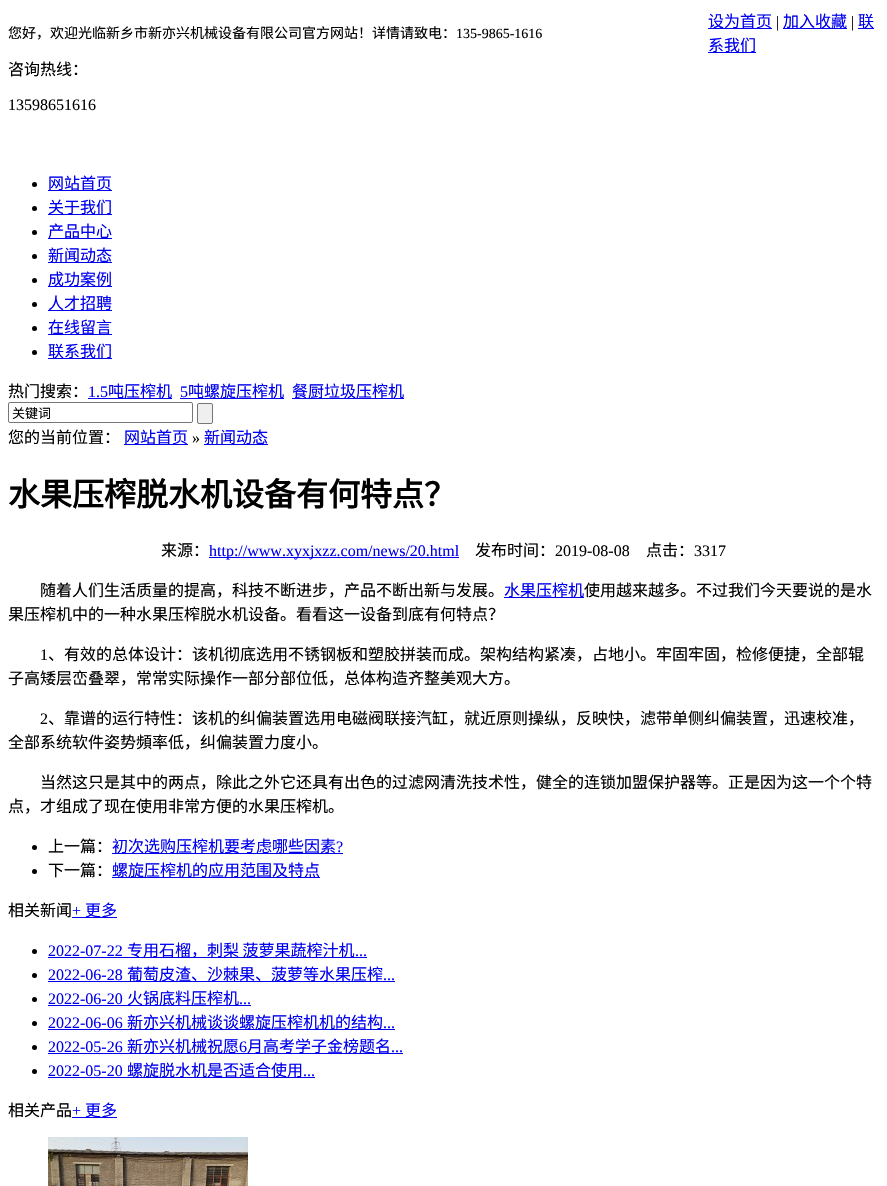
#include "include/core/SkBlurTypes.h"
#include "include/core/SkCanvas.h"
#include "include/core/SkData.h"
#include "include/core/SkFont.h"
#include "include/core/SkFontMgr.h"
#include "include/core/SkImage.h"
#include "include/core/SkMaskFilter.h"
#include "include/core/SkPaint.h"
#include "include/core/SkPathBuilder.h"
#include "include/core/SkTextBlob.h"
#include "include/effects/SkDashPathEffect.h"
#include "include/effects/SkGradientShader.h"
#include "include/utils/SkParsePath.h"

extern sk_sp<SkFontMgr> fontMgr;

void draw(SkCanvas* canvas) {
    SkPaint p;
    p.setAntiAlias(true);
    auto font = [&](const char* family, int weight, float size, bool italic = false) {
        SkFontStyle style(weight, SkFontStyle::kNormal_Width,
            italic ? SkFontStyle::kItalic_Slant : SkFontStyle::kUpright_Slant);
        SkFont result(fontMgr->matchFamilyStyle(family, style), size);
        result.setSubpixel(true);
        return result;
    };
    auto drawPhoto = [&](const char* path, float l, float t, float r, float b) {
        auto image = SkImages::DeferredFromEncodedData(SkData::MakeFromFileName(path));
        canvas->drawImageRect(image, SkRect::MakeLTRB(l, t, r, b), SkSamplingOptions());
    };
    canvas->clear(0xFFFFFFFF);
    auto font1 = font("Noto Sans CJK SC", 400, 14);
    p.setColor(0xFF000000);
    canvas->drawString("您好，欢迎光临新乡市新亦兴机械设备有限公司官方网站！详情请致电：", 8, 38, font1, p);
    auto font2 = font("Liberation Serif", 400, 14);
    canvas->drawString("135-9865-1616", 456, 38, font2, p);
    p.setColor(0xFF0000EE);
    canvas->drawRect(SkRect::MakeLTRB(708, 28, 772, 29), p);
    auto font3 = font("Noto Sans CJK SC", 400, 16);
    canvas->drawString("设为首页", 708, 27, font3, p);
    auto font4 = font("Liberation Serif", 400, 16);
    p.setColor(0xFF000000);
    canvas->drawString("|", 776, 27, font4, p);
    p.setColor(0xFF0000EE);
    canvas->drawRect(SkRect::MakeLTRB(783, 28, 847, 29), p);
    canvas->drawString("加入收藏", 783, 27, font3, p);
    p.setColor(0xFF000000);
    canvas->drawString("|", 851, 27, font4, p);
    p.setColor(0xFF0000EE);
    canvas->drawRect(SkRect::MakeLTRB(858, 28, 874, 29), p);
    canvas->drawString("联", 858, 27, font3, p);
    canvas->drawRect(SkRect::MakeLTRB(708, 52, 756, 53), p);
    canvas->drawString("系我们", 708, 51, font3, p);
    p.setColor(0xFF000000);
    canvas->drawString("咨询热线：", 8, 75, font3, p);
    canvas->drawString("13598651616", 8, 110, font4, p);
    canvas->drawCircle(34.5f, 184.5f, 2.5f, p);
    p.setColor(0xFF0000EE);
    canvas->drawRect(SkRect::MakeLTRB(48, 190, 112, 191), p);
    canvas->drawString("网站首页", 48, 189, font3, p);
    p.setColor(0xFF000000);
    canvas->drawCircle(34.5f, 208.5f, 2.5f, p);
    p.setColor(0xFF0000EE);
    canvas->drawRect(SkRect::MakeLTRB(48, 214, 112, 215), p);
    canvas->drawString("关于我们", 48, 213, font3, p);
    p.setColor(0xFF000000);
    canvas->drawCircle(34.5f, 232.5f, 2.5f, p);
    p.setColor(0xFF0000EE);
    canvas->drawRect(SkRect::MakeLTRB(48, 238, 112, 239), p);
    canvas->drawString("产品中心", 48, 237, font3, p);
    p.setColor(0xFF000000);
    canvas->drawCircle(34.5f, 256.5f, 2.5f, p);
    p.setColor(0xFF0000EE);
    canvas->drawRect(SkRect::MakeLTRB(48, 262, 112, 263), p);
    canvas->drawString("新闻动态", 48, 261, font3, p);
    p.setColor(0xFF000000);
    canvas->drawCircle(34.5f, 280.5f, 2.5f, p);
    p.setColor(0xFF0000EE);
    canvas->drawRect(SkRect::MakeLTRB(48, 286, 112, 287), p);
    canvas->drawString("成功案例", 48, 285, font3, p);
    p.setColor(0xFF000000);
    canvas->drawCircle(34.5f, 304.5f, 2.5f, p);
    p.setColor(0xFF0000EE);
    canvas->drawRect(SkRect::MakeLTRB(48, 310, 112, 311), p);
    canvas->drawString("人才招聘", 48, 309, font3, p);
    p.setColor(0xFF000000);
    canvas->drawCircle(34.5f, 328.5f, 2.5f, p);
    p.setColor(0xFF0000EE);
    canvas->drawRect(SkRect::MakeLTRB(48, 334, 112, 335), p);
    canvas->drawString("在线留言", 48, 333, font3, p);
    p.setColor(0xFF000000);
    canvas->drawCircle(34.5f, 352.5f, 2.5f, p);
    p.setColor(0xFF0000EE);
    canvas->drawRect(SkRect::MakeLTRB(48, 358, 112, 359), p);
    canvas->drawString("联系我们", 48, 357, font3, p);
    p.setColor(0xFF000000);
    canvas->drawString("热门搜索：", 8, 397, font3, p);
    p.setColor(0xFF0000EE);
    canvas->drawString("1.5", 88, 397, font4, p);
    canvas->drawRect(SkRect::MakeLTRB(88, 398, 172, 399), p);
    canvas->drawString("吨压榨机", 108, 397, font3, p);
    canvas->drawString("5", 180, 397, font4, p);
    canvas->drawRect(SkRect::MakeLTRB(180, 398, 284, 399), p);
    canvas->drawString("吨螺旋压榨机", 188, 397, font3, p);
    canvas->drawRect(SkRect::MakeLTRB(292, 398, 404, 399), p);
    canvas->drawString("餐厨垃圾压榨机", 292, 397, font3, p);
    p.setStyle(SkPaint::kStroke_Style);
    p.setStrokeWidth(1);
    p.setColor(0xFF767676);
    canvas->drawRoundRect(SkRect::MakeLTRB(8.5f, 402.5f, 192.5f, 422.5f), 1.5f, 1.5f, p);
    auto font5 = font("Noto Sans CJK SC", 400, 13);
    p.setStyle(SkPaint::kFill_Style);
    p.setColor(0xFF000000);
    canvas->drawString("关键词", 12, 418, font5, p);
    p.setColor(0xFFEFEFEF);
    canvas->drawRoundRect(SkRect::MakeLTRB(197.5f, 403.5f, 212.5f, 423.5f), 1.5f, 1.5f, p);
    p.setStyle(SkPaint::kStroke_Style);
    p.setColor(0xFF767676);
    canvas->drawRoundRect(SkRect::MakeLTRB(197.5f, 403.5f, 212.5f, 423.5f), 1.5f, 1.5f, p);
    p.setStyle(SkPaint::kFill_Style);
    p.setColor(0xFF000000);
    canvas->drawString("您的当前位置：", 8, 443, font3, p);
    p.setColor(0xFF0000EE);
    canvas->drawRect(SkRect::MakeLTRB(124, 444, 188, 445), p);
    canvas->drawString("网站首页", 124, 443, font3, p);
    p.setColor(0xFF000000);
    canvas->drawString("»", 192, 443, font4, p);
    p.setColor(0xFF0000EE);
    canvas->drawRect(SkRect::MakeLTRB(204, 444, 268, 445), p);
    canvas->drawString("新闻动态", 204, 443, font3, p);
    auto font6 = font("Noto Sans CJK SC", 700, 32);
    p.setColor(0xFF000000);
    canvas->drawString("水果压榨脱水机设备有何特点？", 8, 506, font6, p);
    canvas->drawString("来源：", 161, 556, font3, p);
    p.setColor(0xFF0000EE);
    canvas->drawRect(SkRect::MakeLTRB(209, 557, 459, 558), p);
    canvas->drawString("http://www.xyxjxzz.com/news/20.html", 209, 556, font4, p);
    p.setColor(0xFF000000);
    canvas->drawString("发布时间：", 475, 556, font3, p);
    canvas->drawString("2019-08-08", 555, 556, font4, p);
    canvas->drawString("点击：", 646, 556, font3, p);
    canvas->drawString("3317", 694, 556, font4, p);
    canvas->drawString("随着人们生活质量的提高，科技不断进步，产品不断出新与发展。", 40, 596, font3, p);
    p.setColor(0xFF0000EE);
    canvas->drawRect(SkRect::MakeLTRB(504, 597, 584, 598), p);
    canvas->drawString("水果压榨机", 504, 596, font3, p);
    p.setColor(0xFF000000);
    canvas->drawString("使用越来越多。不过我们今天要说的是水", 584, 596, font3, p);
    canvas->drawString("果压榨机中的一种水果压榨脱水机设备。看看这一设备到底有何特点？", 8, 620, font3, p);
    canvas->drawString("1", 40, 660, font4, p);
    canvas->drawString("、有效的总体设计：该机彻底选用不锈钢板和塑胶拼装而成。架构结构紧凑，占地小。牢固牢固，检修便捷，全部辊", 48, 660, font3, p);
    canvas->drawString("子高矮层峦叠翠，常常实际操作一部分部位低，总体构造齐整美观大方。", 8, 684, font3, p);
    canvas->drawString("2", 40, 724, font4, p);
    {
        const struct { const char* s; float x, y; } items[] = {
            {"、靠谱的运行特性：该机的纠偏装置选用电磁阀联接汽缸，就近原则操纵，反映快，滤带单侧纠偏装置，迅速校准，", 48, 724},
            {"全部系统软件姿势頻率低，纠偏装置力度小。", 8, 748},
            {"当然这只是其中的两点，除此之外它还具有出色的过滤网清洗技术性，健全的连锁加盟保护器等。正是因为这一个个特", 40, 788},
            {"点，才组成了现在使用非常方便的水果压榨机。", 8, 812},
        };
        for (auto [s, x, y] : items) {
            canvas->drawString(s, x, y, font3, p);
        }
    }
    canvas->drawCircle(34.5f, 847.5f, 2.5f, p);
    canvas->drawString("上一篇：", 48, 852, font3, p);
    p.setColor(0xFF0000EE);
    canvas->drawRect(SkRect::MakeLTRB(112, 853, 343, 854), p);
    canvas->drawString("初次选购压榨机要考虑哪些因素", 112, 852, font3, p);
    canvas->drawString("?", 336, 852, font4, p);
    p.setColor(0xFF000000);
    canvas->drawCircle(34.5f, 871.5f, 2.5f, p);
    canvas->drawString("下一篇：", 48, 876, font3, p);
    p.setColor(0xFF0000EE);
    canvas->drawRect(SkRect::MakeLTRB(112, 877, 320, 878), p);
    canvas->drawString("螺旋压榨机的应用范围及特点", 112, 876, font3, p);
    p.setColor(0xFF000000);
    canvas->drawString("相关新闻", 8, 916, font3, p);
    p.setColor(0xFF0000EE);
    canvas->drawString("+", 72, 916, font4, p);
    canvas->drawRect(SkRect::MakeLTRB(72, 917, 117, 918), p);
    canvas->drawString("更多", 85, 916, font3, p);
    p.setColor(0xFF000000);
    canvas->drawCircle(34.5f, 951.5f, 2.5f, p);
    p.setColor(0xFF0000EE);
    canvas->drawString("2022-07-22", 48, 956, font4, p);
    canvas->drawRect(SkRect::MakeLTRB(48, 957, 367, 958), p);
    canvas->drawString("专用石榴，刺梨 菠萝果蔬榨汁机", 127, 956, font3, p);
    canvas->drawString("...", 355, 956, font4, p);
    p.setColor(0xFF000000);
    canvas->drawCircle(34.5f, 975.5f, 2.5f, p);
    p.setColor(0xFF0000EE);
    canvas->drawString("2022-06-28", 48, 980, font4, p);
    canvas->drawRect(SkRect::MakeLTRB(48, 981, 395, 982), p);
    canvas->drawString("葡萄皮渣、沙棘果、菠萝等水果压榨", 127, 980, font3, p);
    canvas->drawString("...", 383, 980, font4, p);
    p.setColor(0xFF000000);
    canvas->drawCircle(34.5f, 999.5f, 2.5f, p);
    p.setColor(0xFF0000EE);
    canvas->drawString("2022-06-20", 48, 1004, font4, p);
    canvas->drawRect(SkRect::MakeLTRB(48, 1005, 251, 1006), p);
    canvas->drawString("火锅底料压榨机", 127, 1004, font3, p);
    canvas->drawString("...", 239, 1004, font4, p);
    p.setColor(0xFF000000);
    canvas->drawCircle(34.5f, 1023.5f, 2.5f, p);
    p.setColor(0xFF0000EE);
    canvas->drawString("2022-06-06", 48, 1028, font4, p);
    canvas->drawRect(SkRect::MakeLTRB(48, 1029, 395, 1030), p);
    canvas->drawString("新亦兴机械谈谈螺旋压榨机机的结构", 127, 1028, font3, p);
    canvas->drawString("...", 383, 1028, font4, p);
    p.setColor(0xFF000000);
    canvas->drawCircle(34.5f, 1047.5f, 2.5f, p);
    p.setColor(0xFF0000EE);
    canvas->drawString("2022-05-26", 48, 1052, font4, p);
    canvas->drawRect(SkRect::MakeLTRB(48, 1053, 403, 1054), p);
    canvas->drawString("新亦兴机械祝愿", 127, 1052, font3, p);
    canvas->drawString("6", 239, 1052, font4, p);
    canvas->drawString("月高考学子金榜题名", 247, 1052, font3, p);
    canvas->drawString("...", 391, 1052, font4, p);
    p.setColor(0xFF000000);
    canvas->drawCircle(34.5f, 1071.5f, 2.5f, p);
    p.setColor(0xFF0000EE);
    canvas->drawString("2022-05-20", 48, 1076, font4, p);
    canvas->drawRect(SkRect::MakeLTRB(48, 1077, 315, 1078), p);
    canvas->drawString("螺旋脱水机是否适合使用", 127, 1076, font3, p);
    canvas->drawString("...", 303, 1076, font4, p);
    p.setColor(0xFF000000);
    canvas->drawString("相关产品", 8, 1116, font3, p);
    p.setColor(0xFF0000EE);
    canvas->drawString("+", 72, 1116, font4, p);
    canvas->drawRect(SkRect::MakeLTRB(72, 1117, 117, 1118), p);
    canvas->drawString("更多", 85, 1116, font3, p);
    drawPhoto("media/1.png", 48, 1137, 248, 1186);
}
